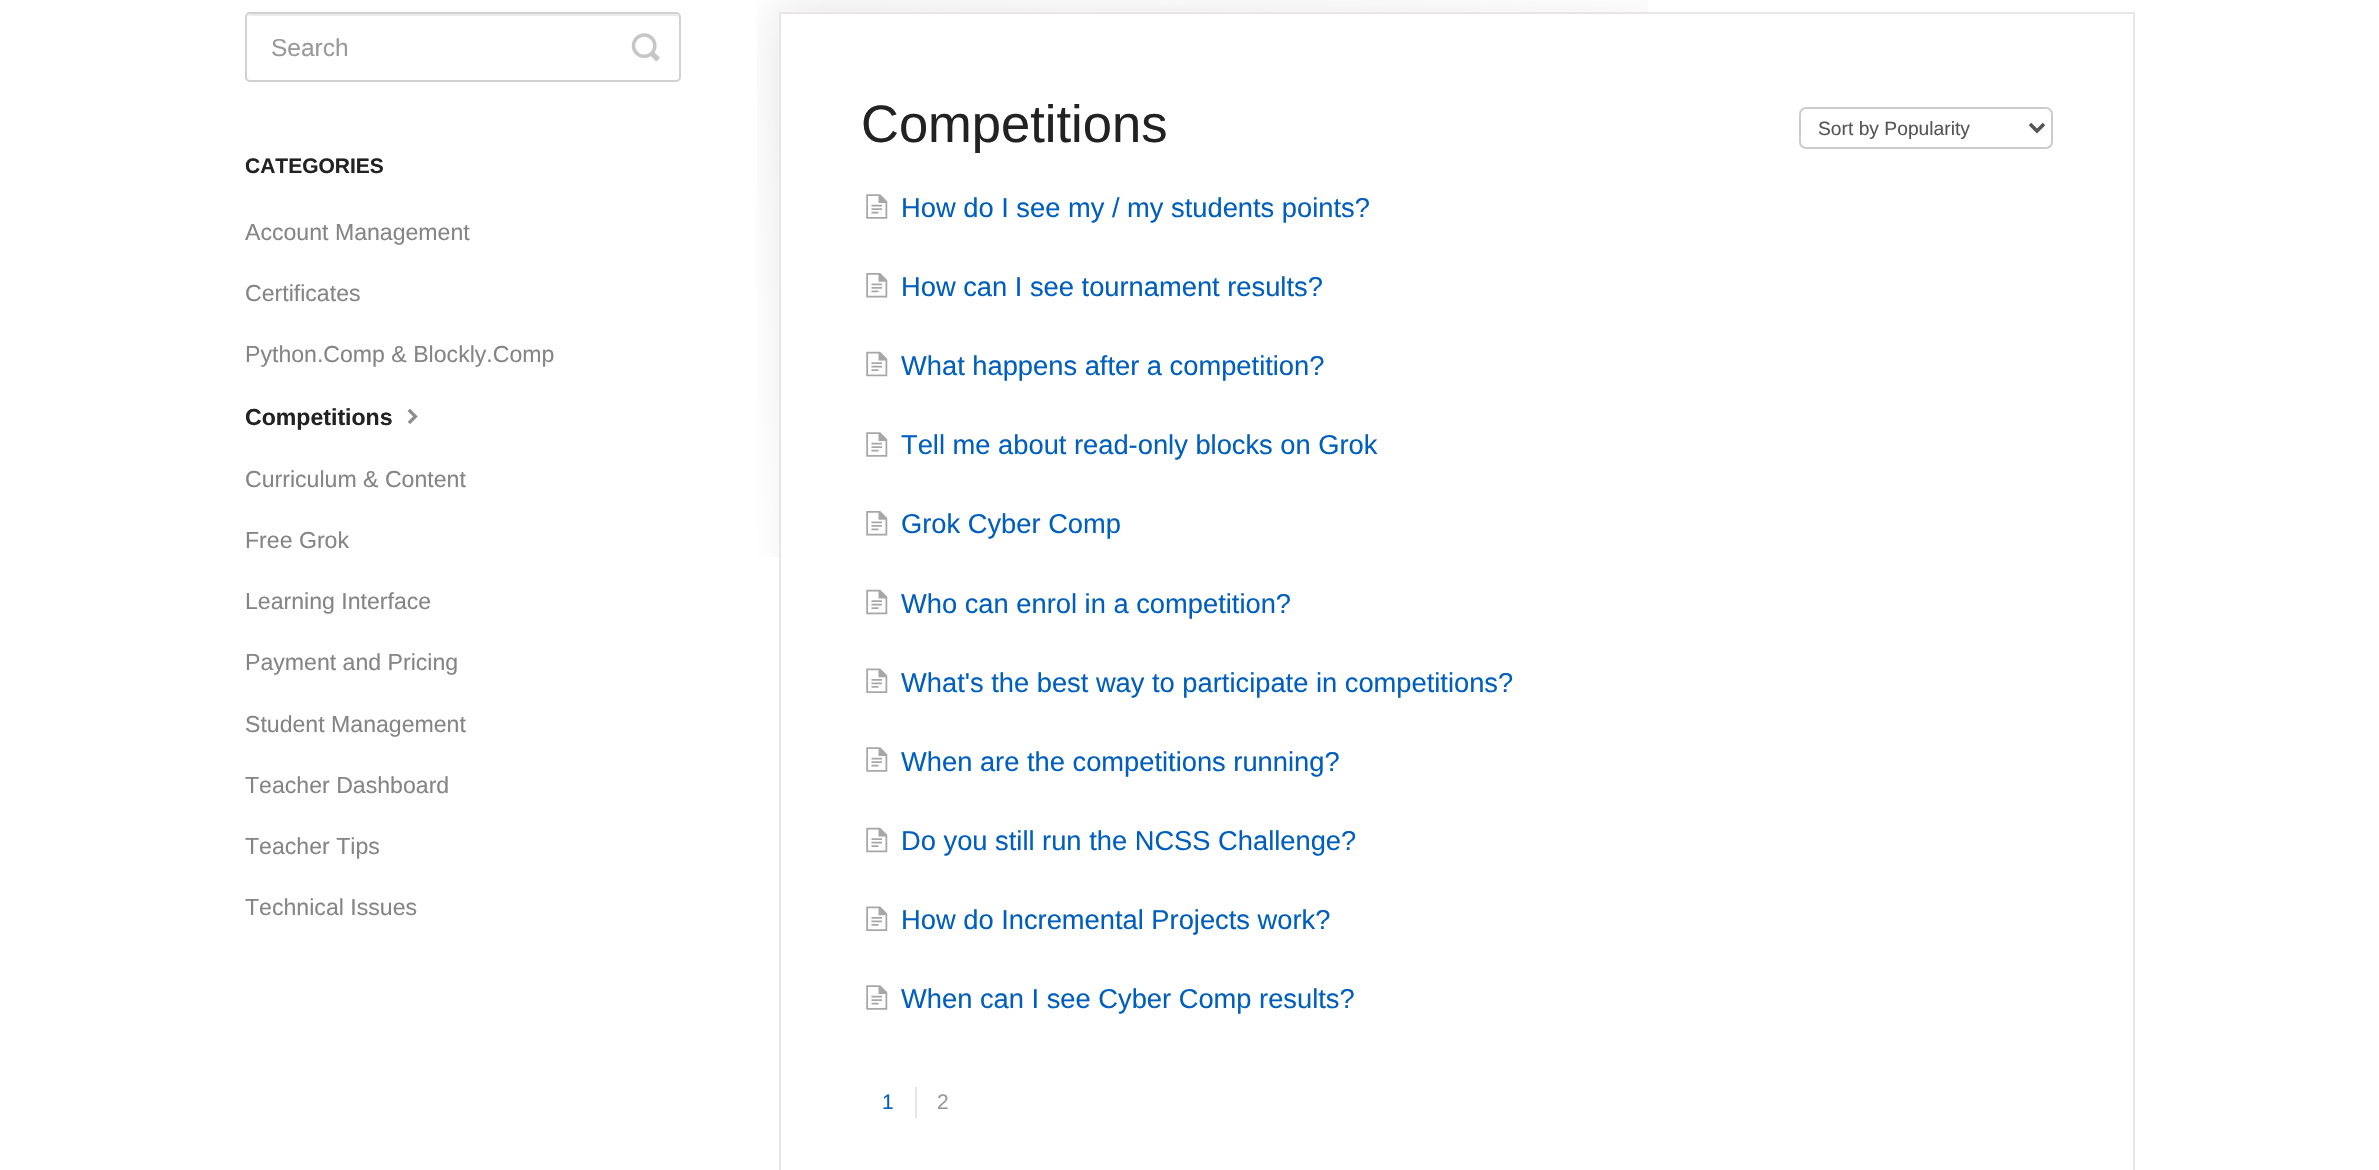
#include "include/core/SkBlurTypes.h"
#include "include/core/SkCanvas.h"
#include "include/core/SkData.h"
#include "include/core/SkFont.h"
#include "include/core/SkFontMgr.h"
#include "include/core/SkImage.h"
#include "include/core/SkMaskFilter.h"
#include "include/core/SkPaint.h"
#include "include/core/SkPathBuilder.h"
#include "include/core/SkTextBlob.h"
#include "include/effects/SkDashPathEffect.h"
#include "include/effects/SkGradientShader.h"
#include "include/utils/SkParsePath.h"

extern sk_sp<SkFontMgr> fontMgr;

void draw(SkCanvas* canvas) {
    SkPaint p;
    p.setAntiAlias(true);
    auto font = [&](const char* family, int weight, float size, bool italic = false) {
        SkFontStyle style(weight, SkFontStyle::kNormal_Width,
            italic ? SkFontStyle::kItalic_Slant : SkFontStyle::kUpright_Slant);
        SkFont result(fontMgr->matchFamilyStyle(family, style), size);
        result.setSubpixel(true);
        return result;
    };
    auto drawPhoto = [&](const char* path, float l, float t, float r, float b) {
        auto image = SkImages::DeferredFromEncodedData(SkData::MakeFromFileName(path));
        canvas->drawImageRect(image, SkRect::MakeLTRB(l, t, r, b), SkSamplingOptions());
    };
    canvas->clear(0xFFFFFFFF);
    p.setColor(0xFFECECEC);
    canvas->drawPath(SkPathBuilder().moveTo(250, 16).lineTo(676, 16).cubicTo(677, 16, 679, 17, 679, 19).cubicTo(679, 16, 678, 14, 675, 14).lineTo(251, 14).cubicTo(250, 14, 248, 15, 248, 16).lineTo(247, 19).cubicTo(247, 17, 248, 16, 250, 16).close().detach(), p);
    p.setStyle(SkPaint::kStroke_Style);
    p.setStrokeWidth(2);
    p.setColor(0xFFD0D0D0);
    canvas->drawRoundRect(SkRect::MakeLTRB(246, 13, 680, 81), 4, 4, p);
    auto font1 = font("Liberation Sans", 400, 24.5f);
    p.setStyle(SkPaint::kFill_Style);
    p.setColor(0xFF999999);
    canvas->drawString("Search", 271, 56, font1, p);
    drawPhoto("media/1.png", 631, 33, 660, 62);
    auto font2 = font("Liberation Sans", 700, 21);
    p.setColor(0xFF222222);
    canvas->drawString("CATEGORIES", 245, 173, font2, p);
    auto font3 = font("Liberation Sans", 400, 23.1f);
    p.setColor(0xFF858585);
    {
        const struct { const char* s; float x, y; } items[] = {
            {"Account Management", 245, 240},
            {"Certificates", 245, 301},
            {"Python.Comp & Blockly.Comp", 245, 362},
        };
        for (auto [s, x, y] : items) {
            canvas->drawString(s, x, y, font3, p);
        }
    }
    auto font4 = font("Liberation Sans", 700, 23.1f);
    p.setColor(0xFF222222);
    canvas->drawString("Competitions", 245, 425, font4, p);
    drawPhoto("media/2.png", 407, 408, 418, 424);
    p.setColor(0xFF858585);
    {
        const struct { const char* s; float x, y; } items[] = {
            {"Curriculum & Content", 245, 487},
            {"Free Grok", 245, 548},
            {"Learning Interface", 245, 609},
            {"Payment and Pricing", 245, 670},
            {"Student Management", 245, 732},
            {"Teacher Dashboard", 245, 793},
            {"Teacher Tips", 245, 854},
            {"Technical Issues", 245, 915},
        };
        for (auto [s, x, y] : items) {
            canvas->drawString(s, x, y, font3, p);
        }
    }
    drawPhoto("media/3.png", 757, 0, 1648, 557);
    p.setStyle(SkPaint::kStroke_Style);
    p.setColor(0xFFE9E5E5);
    canvas->drawRect(SkRect::MakeLTRB(780, 13, 2134, 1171), p);
    auto font5 = font("Liberation Sans", 400, 52.5f);
    p.setStyle(SkPaint::kFill_Style);
    p.setColor(0xFF222222);
    canvas->drawString("Competitions", 861, 142, font5, p);
    p.setStyle(SkPaint::kStroke_Style);
    p.setColor(0xFFCCCCCC);
    canvas->drawRoundRect(SkRect::MakeLTRB(1800, 108, 2052, 148), 6, 6, p);
    p.setStrokeWidth(3.5f);
    p.setColor(0xFF555555);
    canvas->drawPath(SkPathBuilder().moveTo(2030, 124).lineTo(2037, 131).lineTo(2044, 124).detach(), p);
    auto font6 = font("Liberation Sans", 400, 19.25f);
    p.setStyle(SkPaint::kFill_Style);
    canvas->drawString("Sort by Popularity", 1818, 135, font6, p);
    drawPhoto("media/4.png", 866, 194, 888, 219);
    auto font7 = font("Liberation Sans", 400, 27.3f);
    p.setColor(0xFF005FBE);
    canvas->drawString("How do I see my / my students points?", 901, 217, font7, p);
    drawPhoto("media/5.png", 866, 273, 888, 298);
    canvas->drawString("How can I see tournament results?", 901, 296, font7, p);
    drawPhoto("media/6.png", 866, 351, 888, 377);
    canvas->drawString("What happens after a competition?", 901, 375, font7, p);
    drawPhoto("media/4.png", 866, 432, 888, 457);
    canvas->drawString("Tell me about read-only blocks on Grok", 901, 454, font7, p);
    drawPhoto("media/5.png", 866, 511, 888, 536);
    canvas->drawString("Grok Cyber Comp", 901, 533, font7, p);
    drawPhoto("media/6.png", 866, 589, 888, 615);
    canvas->drawString("Who can enrol in a competition?", 901, 613, font7, p);
    drawPhoto("media/7.png", 866, 668, 888, 693);
    canvas->drawString("What's the best way to participate in competitions?", 901, 692, font7, p);
    drawPhoto("media/4.png", 866, 747, 888, 772);
    canvas->drawString("When are the competitions running?", 901, 771, font7, p);
    drawPhoto("media/6.png", 866, 827, 888, 853);
    canvas->drawString("Do you still run the NCSS Challenge?", 901, 850, font7, p);
    drawPhoto("media/7.png", 866, 906, 888, 931);
    canvas->drawString("How do Incremental Projects work?", 901, 929, font7, p);
    drawPhoto("media/4.png", 866, 985, 888, 1010);
    canvas->drawString("When can I see Cyber Comp results?", 901, 1008, font7, p);
    auto font8 = font("Liberation Sans", 400, 21);
    canvas->drawString("1", 882, 1109, font8, p);
    p.setColor(0xFFE7E7E7);
    canvas->drawRect(SkRect::MakeLTRB(915, 1087, 917, 1118), p);
    p.setColor(0xFF999999);
    canvas->drawString("2", 937, 1109, font8, p);
}
